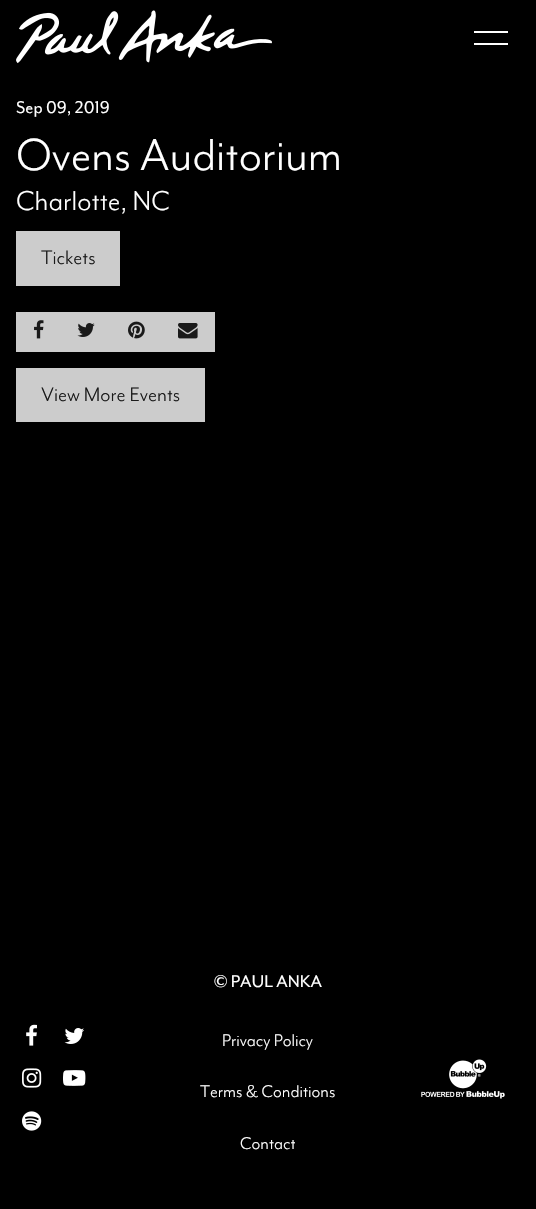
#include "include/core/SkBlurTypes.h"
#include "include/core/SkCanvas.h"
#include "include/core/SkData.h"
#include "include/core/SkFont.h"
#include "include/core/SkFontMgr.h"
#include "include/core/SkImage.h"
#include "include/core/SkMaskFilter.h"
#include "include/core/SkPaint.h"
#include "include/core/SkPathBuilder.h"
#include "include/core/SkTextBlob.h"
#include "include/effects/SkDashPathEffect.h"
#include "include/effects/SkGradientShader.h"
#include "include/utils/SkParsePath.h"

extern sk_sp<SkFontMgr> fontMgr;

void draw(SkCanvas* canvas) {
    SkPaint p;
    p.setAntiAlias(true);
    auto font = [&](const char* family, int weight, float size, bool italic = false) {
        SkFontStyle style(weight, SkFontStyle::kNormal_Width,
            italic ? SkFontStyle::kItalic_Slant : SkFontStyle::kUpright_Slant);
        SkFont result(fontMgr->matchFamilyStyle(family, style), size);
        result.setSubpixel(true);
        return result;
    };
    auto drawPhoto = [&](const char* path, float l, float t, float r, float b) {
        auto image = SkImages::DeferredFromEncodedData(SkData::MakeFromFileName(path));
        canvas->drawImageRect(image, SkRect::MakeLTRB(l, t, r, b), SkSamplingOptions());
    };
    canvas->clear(0xFF000000);
    drawPhoto("media/1.png", 16, 10, 272, 64);
    p.setColor(0xFFFFFFFF);
    canvas->drawRect(SkRect::MakeLTRB(474, 31, 508, 33), p);
    canvas->drawRect(SkRect::MakeLTRB(474, 43, 508, 45), p);
    auto font1 = font("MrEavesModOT", 400, 19.5f);
    canvas->drawString("Sep 09, 2019", 16, 113, font1, p);
    auto font2 = font("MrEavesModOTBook", 400, 51.5f);
    canvas->drawString("Ovens Auditorium", 16, 170, font2, p);
    auto font3 = font("MrEavesModOTBook", 400, 31.5f);
    canvas->drawString("Charlotte, NC", 16, 210, font3, p);
    p.setColor(0xFFCCCCCC);
    canvas->drawRect(SkRect::MakeLTRB(16, 231, 120, 286), p);
    auto font4 = font("MrEavesModOTBook", 400, 22.5f);
    p.setColor(0xFF1A1A1A);
    canvas->drawString("Tickets", 41, 264, font4, p);
    p.setColor(0xFFCCCCCC);
    canvas->drawRect(SkRect::MakeLTRB(16, 312, 215, 352), p);
    drawPhoto("media/2.png", 34, 320, 44, 339);
    drawPhoto("media/3.png", 77, 323, 95, 337);
    drawPhoto("media/4.png", 128, 321, 145, 339);
    drawPhoto("media/5.png", 178, 323, 198, 339);
    canvas->drawRect(SkRect::MakeLTRB(16, 368, 205, 422), p);
    p.setColor(0xFF1A1A1A);
    canvas->drawString("View More Events", 41, 401, font4, p);
    drawPhoto("media/6.png", 26, 1024, 37, 1046);
    drawPhoto("media/7.png", 64, 1028, 84, 1044);
    drawPhoto("media/8.png", 22, 1068, 42, 1088);
    drawPhoto("media/9.png", 63, 1070, 86, 1086);
    drawPhoto("media/10.png", 22, 1111, 42, 1131);
    p.setColor(0xFFFFFFFF);
    canvas->drawString("© PAUL ANKA", 214, 987, font1, p);
    auto font5 = font("MrEavesModOTBook", 400, 19.5f);
    {
        const struct { const char* s; float x, y; } items[] = {
            {"Privacy Policy", 222, 1046},
            {"Terms & Conditions", 200, 1097},
            {"Contact", 240, 1149},
        };
        for (auto [s, x, y] : items) {
            canvas->drawString(s, x, y, font5, p);
        }
    }
    drawPhoto("media/11.png", 421, 1059, 505, 1099);
}
